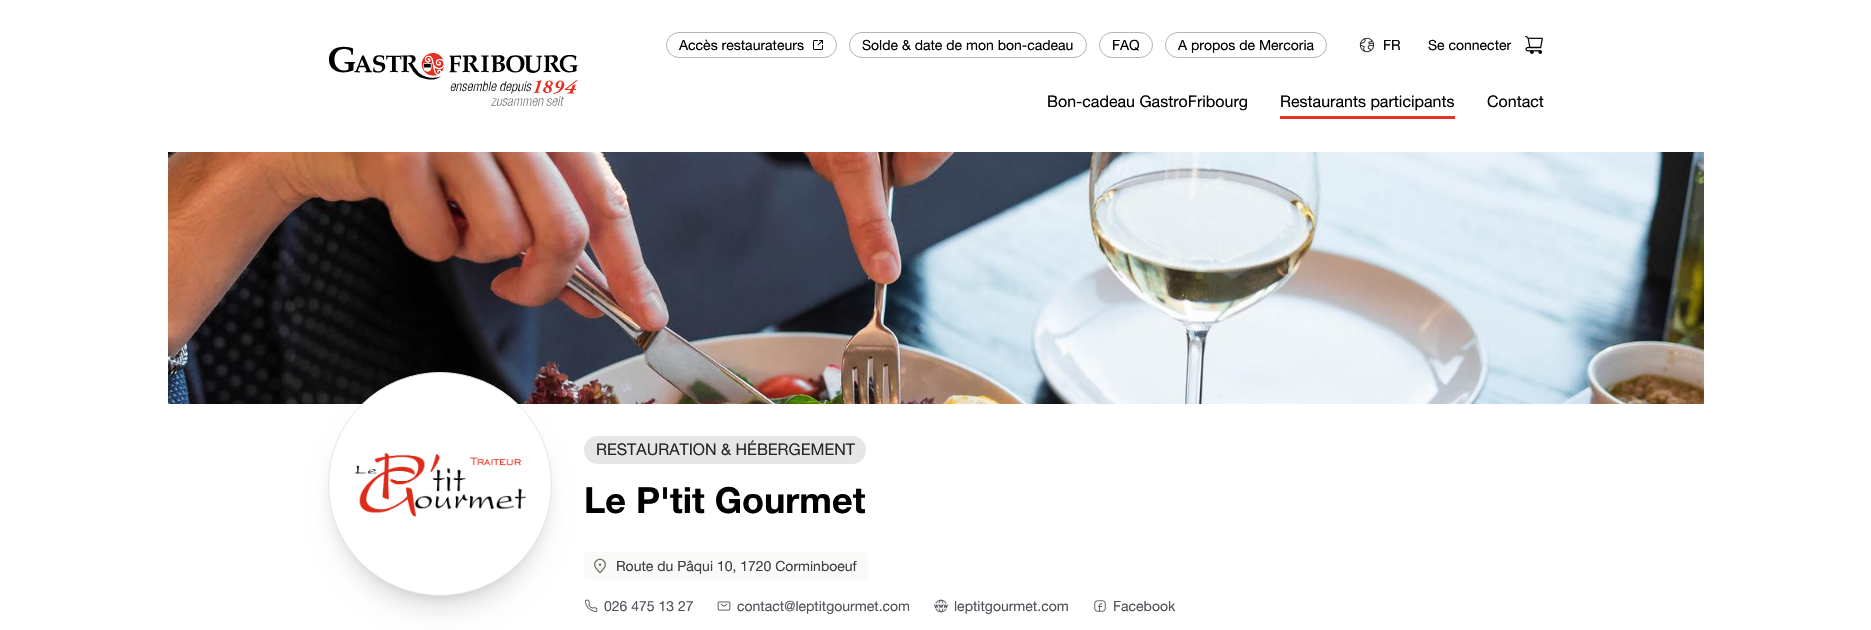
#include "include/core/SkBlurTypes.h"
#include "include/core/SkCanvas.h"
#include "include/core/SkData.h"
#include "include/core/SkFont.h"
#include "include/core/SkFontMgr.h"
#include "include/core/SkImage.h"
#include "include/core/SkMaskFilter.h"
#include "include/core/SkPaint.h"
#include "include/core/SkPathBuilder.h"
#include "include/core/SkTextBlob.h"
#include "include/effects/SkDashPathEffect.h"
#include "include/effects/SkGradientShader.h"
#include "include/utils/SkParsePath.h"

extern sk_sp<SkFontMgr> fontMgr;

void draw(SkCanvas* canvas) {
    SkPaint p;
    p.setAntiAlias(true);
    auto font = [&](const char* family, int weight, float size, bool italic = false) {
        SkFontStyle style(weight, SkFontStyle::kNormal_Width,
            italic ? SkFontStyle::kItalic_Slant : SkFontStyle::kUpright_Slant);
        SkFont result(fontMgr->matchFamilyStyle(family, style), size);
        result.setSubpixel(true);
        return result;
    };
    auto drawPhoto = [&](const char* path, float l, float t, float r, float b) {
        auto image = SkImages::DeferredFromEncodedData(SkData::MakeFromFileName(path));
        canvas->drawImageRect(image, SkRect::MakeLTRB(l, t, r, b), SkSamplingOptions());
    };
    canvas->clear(0xFFFFFFFF);
    drawPhoto("media/1.png", 328, 46, 578, 106);
    p.setStyle(SkPaint::kStroke_Style);
    p.setStrokeWidth(1);
    p.setColor(0xFFB3B3B3);
    canvas->drawRoundRect(SkRect::MakeLTRB(666.5f, 32.5f, 836.5f, 57.5f), 12.5f, 12.5f, p);
    auto font1 = font("Helvetica Neue", 400, 14);
    p.setStyle(SkPaint::kFill_Style);
    p.setColor(0xFF000000);
    canvas->drawString("Accès restaurateurs", 679, 50, font1, p);
    drawPhoto("media/2.png", 813, 40, 823, 50);
    p.setStyle(SkPaint::kStroke_Style);
    p.setColor(0xFFB3B3B3);
    canvas->drawRoundRect(SkRect::MakeLTRB(849.5f, 32.5f, 1086.5f, 57.5f), 12.5f, 12.5f, p);
    p.setStyle(SkPaint::kFill_Style);
    p.setColor(0xFF000000);
    canvas->drawString("Solde & date de mon bon-cadeau", 862, 50, font1, p);
    p.setStyle(SkPaint::kStroke_Style);
    p.setColor(0xFFB3B3B3);
    canvas->drawRoundRect(SkRect::MakeLTRB(1099.5f, 32.5f, 1152.5f, 57.5f), 12.5f, 12.5f, p);
    p.setStyle(SkPaint::kFill_Style);
    p.setColor(0xFF000000);
    canvas->drawString("FAQ", 1112, 50, font1, p);
    p.setStyle(SkPaint::kStroke_Style);
    p.setColor(0xFFB3B3B3);
    canvas->drawRoundRect(SkRect::MakeLTRB(1165.5f, 32.5f, 1326.5f, 57.5f), 12.5f, 12.5f, p);
    p.setStyle(SkPaint::kFill_Style);
    p.setColor(0xFF000000);
    canvas->drawString("A propos de Mercoria", 1178, 50, font1, p);
    drawPhoto("media/3.png", 1359, 37, 1375, 53);
    canvas->drawString("FR", 1383, 50, font1, p);
    canvas->drawString("Se connecter", 1428, 50, font1, p);
    drawPhoto("media/4.png", 1525, 36, 1543, 54);
    auto font2 = font("Helvetica Neue", 400, 16);
    canvas->drawString("Bon-cadeau GastroFribourg", 1047, 107, font2, p);
    canvas->drawString("Restaurants participants", 1280, 107, font2, p);
    p.setColor(0xFFE63022);
    canvas->drawRect(SkRect::MakeLTRB(1280, 116, 1455, 119), p);
    p.setColor(0xFF000000);
    canvas->drawString("Contact", 1487, 107, font2, p);
    drawPhoto("media/5.png", 168, 152, 1704, 404);
    p.setColor(0x1A000000);
    p.setMaskFilter(SkMaskFilter::MakeBlur(kNormal_SkBlurStyle, 5));
    canvas->drawRoundRect(SkRect::MakeLTRB(334, 386, 546, 598), 106, 106, p);
    p.setMaskFilter(nullptr);
    p.setColor(0xFFE6E6E6);
    canvas->drawRoundRect(SkRect::MakeLTRB(584, 436, 866, 464), 14, 14, p);
    p.setColor(0xFFFAFAF9);
    canvas->drawRoundRect(SkRect::MakeLTRB(584, 552, 868, 580), 4, 4, p);
    drawPhoto("media/8.png", 584, 599, 598, 613);
    p.setColor(0x1A000000);
    p.setMaskFilter(SkMaskFilter::MakeBlur(kNormal_SkBlurStyle, 12.5f));
    canvas->drawRoundRect(SkRect::MakeLTRB(333, 397, 547, 611), 107, 107, p);
    p.setMaskFilter(nullptr);
    p.setColor(0xFFFFFFFF);
    canvas->drawCircle(440, 484, 111.5f, p);
    p.setStyle(SkPaint::kStroke_Style);
    p.setColor(0xFFE7E5E4);
    canvas->drawCircle(440, 484, 111.5f, p);
    canvas->save();
    canvas->clipPath(SkPathBuilder().moveTo(440, 373).cubicTo(501.5f, 373, 551, 422.5f, 551, 484).cubicTo(551, 545.5f, 501.5f, 595, 440, 595).cubicTo(378.5f, 595, 329, 545.5f, 329, 484).cubicTo(329, 422.5f, 378.5f, 373, 440, 373).close().detach(), true);
    p.setStyle(SkPaint::kFill_Style);
    p.setColor(0xFFFFFFFF);
    canvas->drawRect(SkRect::MakeLTRB(353, 397, 527, 571), p);
    canvas->restore();
    drawPhoto("media/6.png", 354, 452, 527, 517);
    p.setColor(0xFF292524);
    canvas->drawString("RESTAURATION & HÉBERGEMENT", 596, 455, font2, p);
    auto font3 = font("Helvetica Neue", 700, 36);
    p.setColor(0xFF000000);
    canvas->drawString("Le P'tit Gourmet", 584, 513, font3, p);
    drawPhoto("media/7.png", 594, 558, 606, 574);
    p.setColor(0xFF3F3F46);
    canvas->drawString("Route du Pâqui 10, 1720 Corminboeuf", 616, 571, font1, p);
    p.setColor(0xFF52525B);
    canvas->drawString("026 475 13 27", 604, 611, font1, p);
    drawPhoto("media/9.png", 717, 601, 731, 611);
    canvas->drawString("contact@leptitgourmet.com", 737, 611, font1, p);
    drawPhoto("media/10.png", 934, 599, 948, 613);
    canvas->drawString("leptitgourmet.com", 954, 611, font1, p);
    drawPhoto("media/11.png", 1094, 600, 1106, 612);
    canvas->drawString("Facebook", 1113, 611, font1, p);
}
